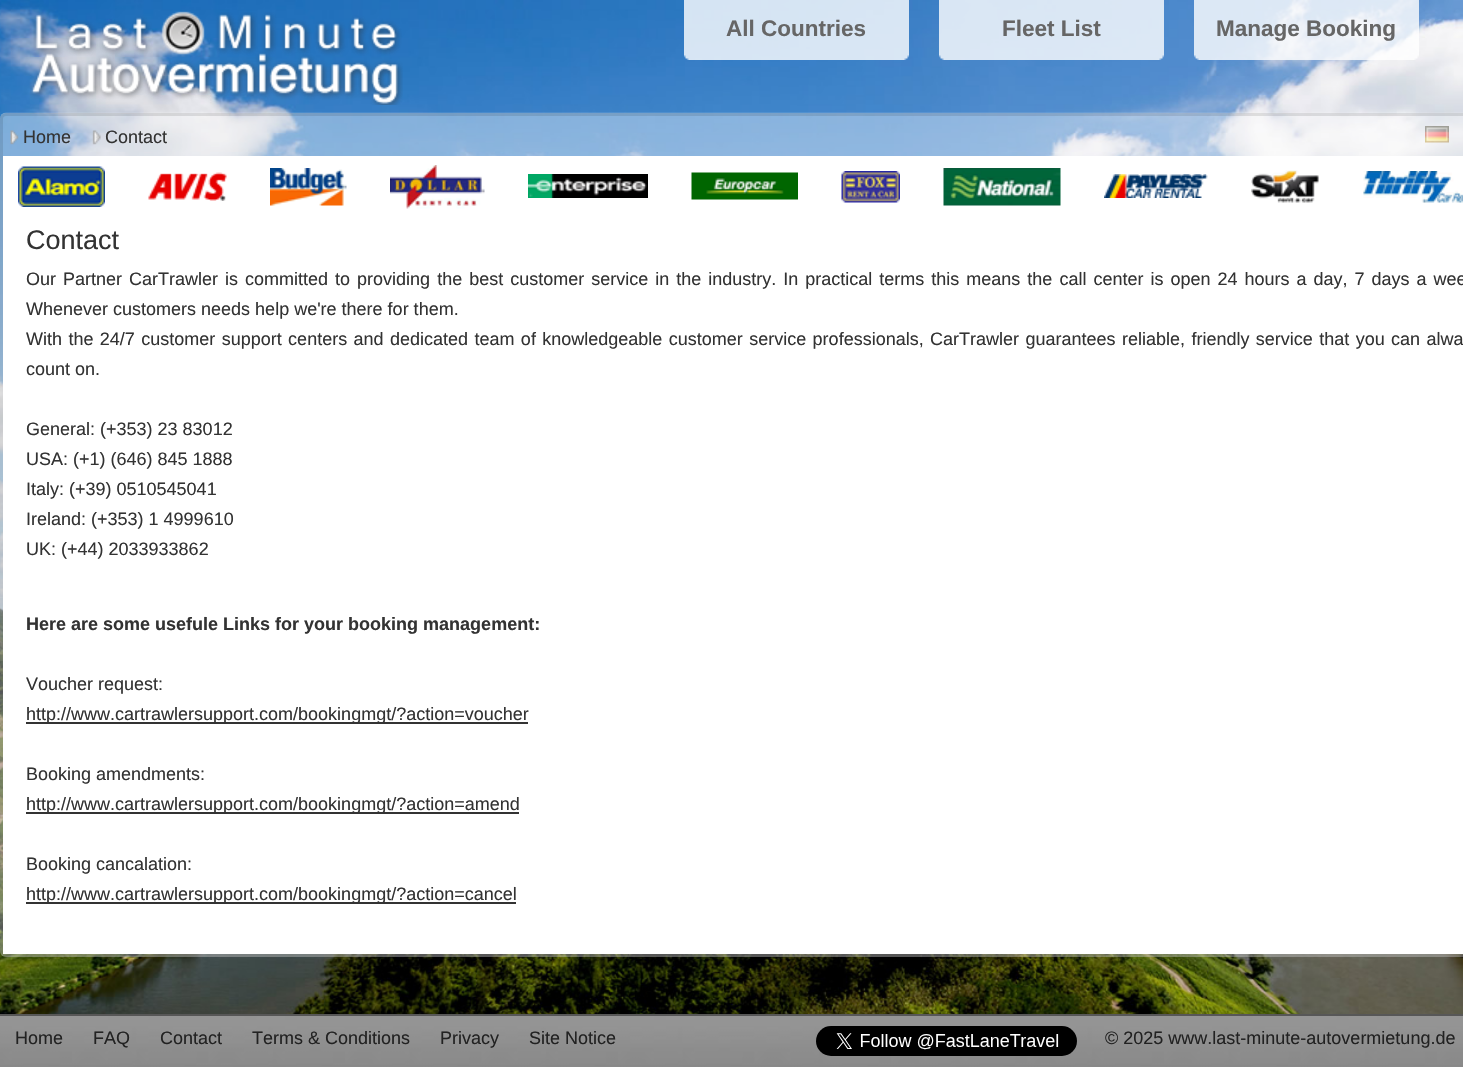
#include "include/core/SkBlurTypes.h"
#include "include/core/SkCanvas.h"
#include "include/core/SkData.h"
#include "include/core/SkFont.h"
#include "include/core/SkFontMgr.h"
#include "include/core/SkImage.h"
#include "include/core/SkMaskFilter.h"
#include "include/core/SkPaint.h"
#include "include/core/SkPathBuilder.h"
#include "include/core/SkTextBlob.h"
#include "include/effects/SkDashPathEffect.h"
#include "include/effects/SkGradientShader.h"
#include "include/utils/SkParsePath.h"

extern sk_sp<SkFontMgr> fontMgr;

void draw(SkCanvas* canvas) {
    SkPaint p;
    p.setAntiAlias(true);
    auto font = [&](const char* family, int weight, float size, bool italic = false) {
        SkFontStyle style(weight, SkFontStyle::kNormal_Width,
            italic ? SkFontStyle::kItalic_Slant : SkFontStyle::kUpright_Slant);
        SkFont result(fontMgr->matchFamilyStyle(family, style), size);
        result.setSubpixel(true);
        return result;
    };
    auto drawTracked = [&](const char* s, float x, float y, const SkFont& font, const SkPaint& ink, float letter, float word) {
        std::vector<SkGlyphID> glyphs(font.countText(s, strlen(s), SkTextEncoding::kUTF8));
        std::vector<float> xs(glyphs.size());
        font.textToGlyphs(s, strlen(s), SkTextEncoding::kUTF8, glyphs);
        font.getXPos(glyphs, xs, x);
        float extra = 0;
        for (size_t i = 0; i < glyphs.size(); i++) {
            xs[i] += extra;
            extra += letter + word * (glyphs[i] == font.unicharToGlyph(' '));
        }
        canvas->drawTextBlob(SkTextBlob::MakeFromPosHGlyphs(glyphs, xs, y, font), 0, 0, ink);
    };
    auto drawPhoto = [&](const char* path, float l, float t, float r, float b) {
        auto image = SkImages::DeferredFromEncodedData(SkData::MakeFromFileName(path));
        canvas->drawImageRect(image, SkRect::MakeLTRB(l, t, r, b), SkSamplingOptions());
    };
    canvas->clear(0xFFFFFFFF);
    drawPhoto("media/1.png", 0, 0, 1463, 1014);
    drawPhoto("media/2.png", 30, 11, 403, 105);
    drawPhoto("media/3.png", 684, 0, 909, 60);
    auto font1 = font("Liberation Sans", 700, 22.5f);
    p.setColor(0xFF666666);
    canvas->drawString("All Countries", 726, 36, font1, p);
    drawPhoto("media/4.png", 939, 0, 1164, 60);
    canvas->drawString("Fleet List", 1002, 36, font1, p);
    drawPhoto("media/5.png", 1194, 0, 1419, 60);
    canvas->drawString("Manage Booking", 1216, 36, font1, p);
    drawPhoto("media/6.png", 0, 112, 1463, 957);
    p.setStyle(SkPaint::kStroke_Style);
    p.setStrokeWidth(3);
    p.setColor(0x1A000000);
    canvas->drawRoundRect(SkRect::MakeLTRB(1.5f, 114.5f, 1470.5f, 955.5f), 4.5f, 4.5f, p);
    drawPhoto("media/7.png", 10, 130, 19, 145);
    auto font2 = font("Liberation Sans", 400, 18);
    p.setStyle(SkPaint::kFill_Style);
    p.setColor(0xFF333333);
    canvas->drawString("Home", 23, 143, font2, p);
    drawPhoto("media/8.png", 92, 130, 101, 145);
    canvas->drawString("Contact", 105, 143, font2, p);
    drawPhoto("media/9.png", 1425, 126, 1449, 143);
    p.setColor(0xFFFFFFFF);
    canvas->drawRect(SkRect::MakeLTRB(3, 156, 1463, 954), p);
    drawPhoto("media/10.png", 18, 166, 105, 207);
    drawPhoto("media/11.png", 148, 172, 227, 201);
    drawPhoto("media/12.png", 270, 168, 347, 206);
    drawPhoto("media/13.png", 390, 165, 485, 209);
    drawPhoto("media/14.png", 528, 174, 648, 198);
    drawPhoto("media/15.png", 691, 172, 798, 200);
    drawPhoto("media/16.png", 841, 171, 900, 203);
    drawPhoto("media/17.png", 943, 168, 1061, 206);
    drawPhoto("media/18.png", 1104, 174, 1208, 198);
    drawPhoto("media/19.png", 1251, 170, 1319, 203);
    drawPhoto("media/20.png", 1363, 171, 1463, 203);
    auto font3 = font("Liberation Sans", 400, 27);
    p.setColor(0xFF333333);
    canvas->drawString("Contact", 26, 249, font3, p);
    drawTracked("Our Partner CarTrawler is committed to providing the best customer service in the industry. In practical terms this means the call center is open 24 hours a day, 7 days a wee", 26, 285, font2, p, 0, 2);
    canvas->drawString("Whenever customers needs help we're there for them.", 26, 315, font2, p);
    drawTracked("With the 24/7 customer support centers and dedicated team of knowledgeable customer service professionals, CarTrawler guarantees reliable, friendly service that you can alwa", 26, 345, font2, p, 0, 1.4f);
    {
        const struct { const char* s; float x, y; } items[] = {
            {"count on.", 26, 375},
            {"General: (+353) 23 83012", 26, 435},
            {"USA: (+1) (646) 845 1888", 26, 465},
            {"Italy: (+39) 0510545041", 26, 495},
            {"Ireland: (+353) 1 4999610", 26, 525},
            {"UK: (+44) 2033933862", 26, 555},
        };
        for (auto [s, x, y] : items) {
            canvas->drawString(s, x, y, font2, p);
        }
    }
    auto font4 = font("Liberation Sans", 700, 18);
    canvas->drawString("Here are some usefule Links for your booking management:", 26, 630, font4, p);
    canvas->drawString("Voucher request:", 26, 690, font2, p);
    canvas->drawRect(SkRect::MakeLTRB(26, 722, 528, 724), p);
    canvas->drawString("http://www.cartrawlersupport.com/bookingmgt/?action=voucher", 26, 720, font2, p);
    canvas->drawString("Booking amendments:", 26, 780, font2, p);
    canvas->drawRect(SkRect::MakeLTRB(26, 812, 519, 814), p);
    canvas->drawString("http://www.cartrawlersupport.com/bookingmgt/?action=amend", 26, 810, font2, p);
    canvas->drawString("Booking cancalation:", 26, 870, font2, p);
    canvas->drawRect(SkRect::MakeLTRB(26, 902, 516, 904), p);
    canvas->drawString("http://www.cartrawlersupport.com/bookingmgt/?action=cancel", 26, 900, font2, p);
    drawPhoto("media/21.png", 0, 1016, 1463, 1067);
    p.setColor(0xFF575757);
    canvas->drawRect(SkRect::MakeLTRB(0, 1014, 1463, 1016), p);
    p.setColor(0xFF222222);
    {
        const struct { const char* s; float x, y; } items[] = {
            {"Home", 15, 1044},
            {"FAQ", 93, 1044},
            {"Contact", 160, 1044},
            {"Terms & Conditions", 252, 1044},
            {"Privacy", 440, 1044},
            {"Site Notice", 529, 1044},
        };
        for (auto [s, x, y] : items) {
            canvas->drawString(s, x, y, font2, p);
        }
    }
    drawPhoto("media/22.png", 816, 1026, 1077, 1056);
    canvas->drawString("© 2025 www.last-minute-autovermietung.de", 1105, 1044, font2, p);
}
